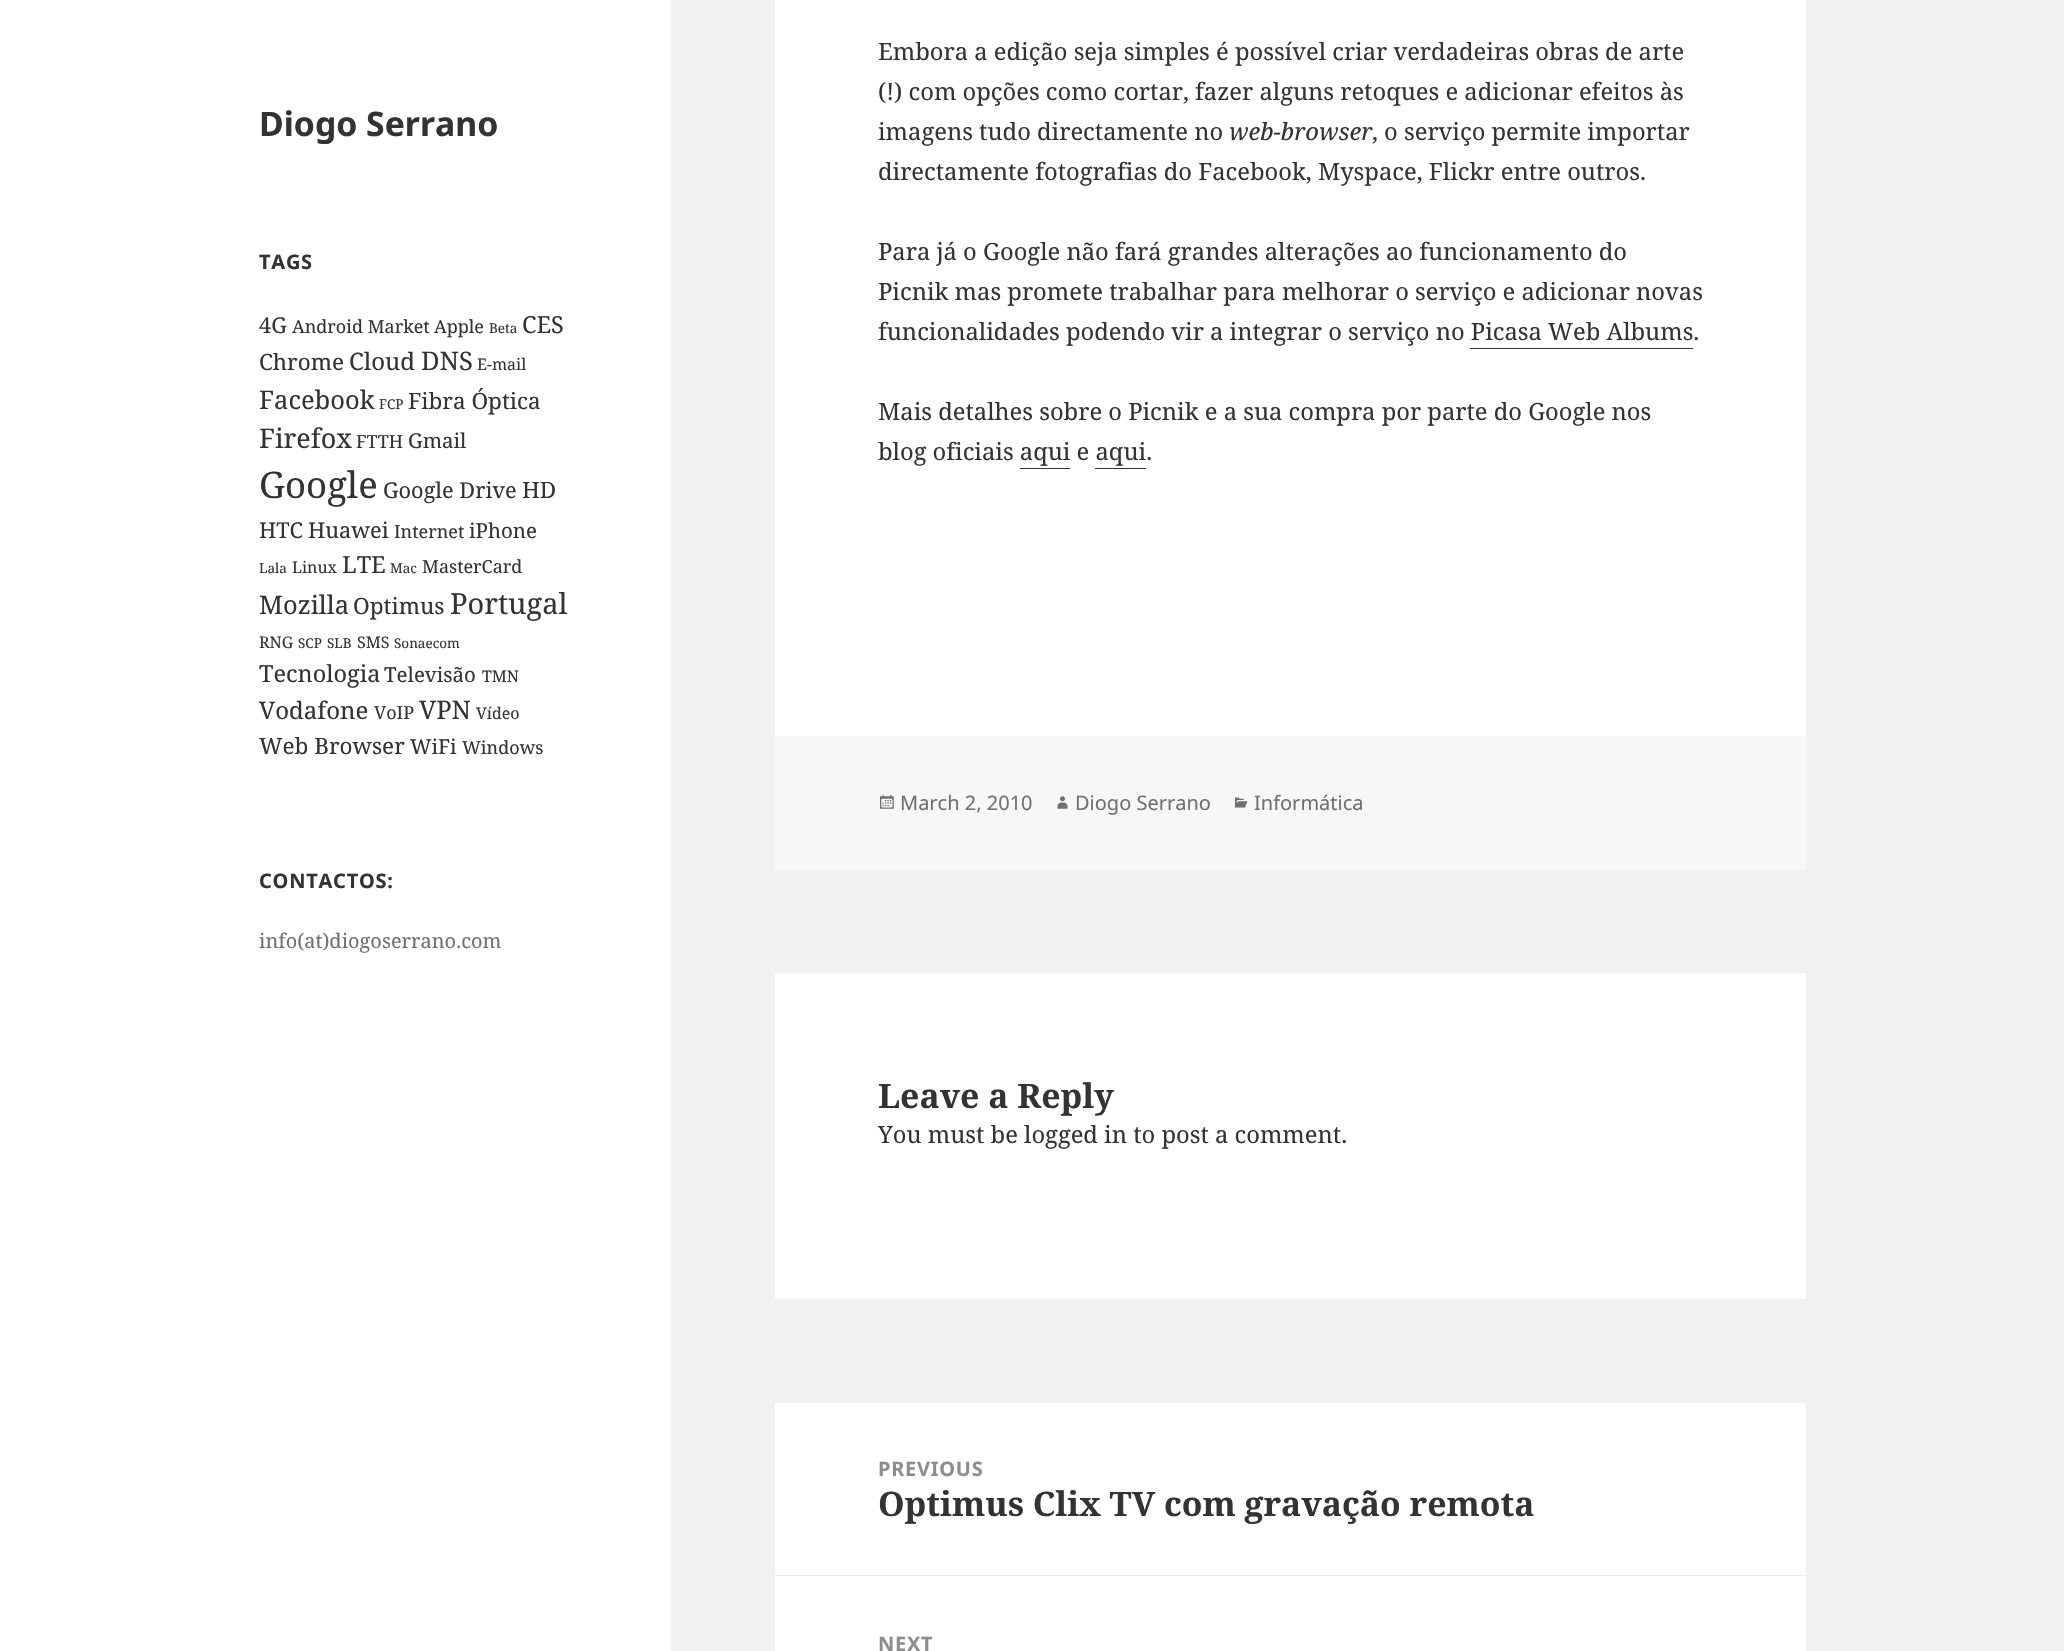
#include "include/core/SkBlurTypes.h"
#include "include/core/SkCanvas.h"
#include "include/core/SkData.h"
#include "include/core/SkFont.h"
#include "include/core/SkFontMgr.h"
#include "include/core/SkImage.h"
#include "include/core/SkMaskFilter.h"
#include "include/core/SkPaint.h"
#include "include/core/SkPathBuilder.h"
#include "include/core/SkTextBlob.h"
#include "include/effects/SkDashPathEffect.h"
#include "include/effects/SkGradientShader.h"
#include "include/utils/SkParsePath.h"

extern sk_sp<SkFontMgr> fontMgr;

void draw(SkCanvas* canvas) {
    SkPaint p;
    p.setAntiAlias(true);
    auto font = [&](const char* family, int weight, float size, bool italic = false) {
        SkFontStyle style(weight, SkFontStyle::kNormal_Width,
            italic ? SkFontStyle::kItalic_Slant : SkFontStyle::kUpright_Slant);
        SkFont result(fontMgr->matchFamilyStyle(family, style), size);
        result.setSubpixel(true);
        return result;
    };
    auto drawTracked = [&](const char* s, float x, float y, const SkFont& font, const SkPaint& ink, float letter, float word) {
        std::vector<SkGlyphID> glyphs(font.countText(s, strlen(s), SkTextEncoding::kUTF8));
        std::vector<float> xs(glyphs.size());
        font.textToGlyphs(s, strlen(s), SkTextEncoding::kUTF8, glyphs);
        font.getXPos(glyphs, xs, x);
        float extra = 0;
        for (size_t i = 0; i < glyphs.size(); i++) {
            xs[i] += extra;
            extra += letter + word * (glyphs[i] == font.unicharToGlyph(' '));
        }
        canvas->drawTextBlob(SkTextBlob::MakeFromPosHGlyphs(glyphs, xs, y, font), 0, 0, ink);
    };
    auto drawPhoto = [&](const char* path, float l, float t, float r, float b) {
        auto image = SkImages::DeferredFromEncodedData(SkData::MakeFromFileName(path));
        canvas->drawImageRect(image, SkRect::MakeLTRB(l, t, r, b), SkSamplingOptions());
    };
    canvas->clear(0xFFF1F1F1);
    p.setColor(0xFFFFFFFF);
    canvas->drawRect(SkRect::MakeLTRB(0, 0, 671, 1651), p);
    auto font1 = font("Noto Sans", 700, 33.75f);
    p.setColor(0xFF333333);
    canvas->drawString("Diogo Serrano", 259, 136, font1, p);
    auto font2 = font("Noto Sans", 700, 20);
    drawTracked("TAGS", 259, 269, font2, p, 0.75f, 0);
    auto font3 = font("Noto Serif", 400, 21.75f);
    canvas->drawString("4G", 259, 333, font3, p);
    auto font4 = font("Noto Serif", 400, 18);
    canvas->drawString("Android Market", 292, 333, font4, p);
    canvas->drawString("Apple", 434, 333, font4, p);
    auto font5 = font("Noto Serif", 400, 13.5f);
    canvas->drawString("Beta", 489, 333, font5, p);
    auto font6 = font("Noto Serif", 400, 23.5f);
    canvas->drawString("CES", 522, 333, font6, p);
    auto font7 = font("Noto Serif", 400, 22.5f);
    canvas->drawString("Chrome", 259, 370, font7, p);
    auto font8 = font("Noto Serif", 400, 24);
    canvas->drawString("Cloud", 349, 370, font8, p);
    auto font9 = font("Noto Serif", 400, 25.5f);
    canvas->drawString("DNS", 421, 370, font9, p);
    auto font10 = font("Noto Serif", 400, 16);
    canvas->drawString("E-mail", 477, 370, font10, p);
    canvas->drawString("Facebook", 259, 409, font9, p);
    canvas->drawString("FCP", 379, 409, font5, p);
    canvas->drawString("Fibra Óptica", 408, 409, font7, p);
    auto font11 = font("Noto Serif", 400, 27);
    canvas->drawString("Firefox", 259, 448, font11, p);
    canvas->drawString("FTTH", 356, 448, font4, p);
    auto font12 = font("Noto Serif", 400, 20.5f);
    canvas->drawString("Gmail", 408, 448, font12, p);
    auto font13 = font("Noto Serif", 400, 36.5f);
    canvas->drawString("Google", 259, 498, font13, p);
    canvas->drawString("Google Drive", 383, 498, font3, p);
    canvas->drawString("HD", 522, 498, font7, p);
    canvas->drawString("HTC", 259, 538, font3, p);
    canvas->drawString("Huawei", 308, 538, font3, p);
    canvas->drawString("Internet", 394, 538, font4, p);
    canvas->drawString("iPhone", 469, 538, font12, p);
    canvas->drawString("Lala", 259, 573, font5, p);
    canvas->drawString("Linux", 292, 573, font10, p);
    canvas->drawString("LTE", 342, 573, font6, p);
    canvas->drawString("Mac", 390, 573, font5, p);
    canvas->drawString("MasterCard", 422, 573, font4, p);
    canvas->drawString("Mozilla", 259, 614, font9, p);
    canvas->drawString("Optimus", 353, 614, font7, p);
    auto font14 = font("Noto Serif", 400, 29);
    canvas->drawString("Portugal", 450, 614, font14, p);
    canvas->drawString("RNG", 259, 648, font10, p);
    canvas->drawString("SCP", 298, 648, font5, p);
    canvas->drawString("SLB", 327, 648, font5, p);
    canvas->drawString("SMS", 357, 648, font10, p);
    canvas->drawString("Sonaecom", 394, 648, font5, p);
    canvas->drawString("Tecnologia", 259, 682, font6, p);
    canvas->drawString("Televisão", 384, 682, font12, p);
    canvas->drawString("TMN", 482, 682, font10, p);
    canvas->drawString("Vodafone", 259, 719, font8, p);
    canvas->drawString("VoIP", 374, 719, font4, p);
    canvas->drawString("VPN", 419, 719, font9, p);
    canvas->drawString("Vídeo", 476, 719, font10, p);
    canvas->drawString("Web Browser", 259, 754, font7, p);
    canvas->drawString("WiFi", 410, 754, font12, p);
    canvas->drawString("Windows", 462, 754, font4, p);
    drawTracked("CONTACTOS:", 259, 888, font2, p, 0.75f, 0);
    auto font15 = font("Noto Serif", 400, 20);
    p.setColor(0xFF707070);
    canvas->drawString("info(at)diogoserrano.com", 259, 948, font15, p);
    p.setColor(0xFFFFFFFF);
    canvas->drawRect(SkRect::MakeLTRB(775, 0, 1806, 736), p);
    auto font16 = font("Noto Serif", 400, 23.75f);
    p.setColor(0xFF333333);
    {
        const struct { const char* s; float x, y; } items[] = {
            {"Embora a edição seja simples é possível criar verdadeiras obras de arte", 878, 60},
            {"(!) com opções como cortar, fazer alguns retoques e adicionar efeitos às", 878, 100},
            {"imagens tudo directamente no", 878, 140},
        };
        for (auto [s, x, y] : items) {
            canvas->drawString(s, x, y, font16, p);
        }
    }
    auto font17 = font("Noto Serif", 400, 23.75f, true);
    canvas->drawString("web-browser", 1229, 140, font17, p);
    {
        const struct { const char* s; float x, y; } items[] = {
            {", o serviço permite importar", 1372, 140},
            {"directamente fotografias do Facebook, Myspace, Flickr entre outros.", 878, 180},
            {"Para já o Google não fará grandes alterações ao funcionamento do", 878, 260},
            {"Picnik mas promete trabalhar para melhorar o serviço e adicionar novas", 878, 300},
            {"funcionalidades podendo vir a integrar o serviço no Picasa Web Albums.", 878, 340},
        };
        for (auto [s, x, y] : items) {
            canvas->drawString(s, x, y, font16, p);
        }
    }
    canvas->drawRect(SkRect::MakeLTRB(1470, 348, 1693, 349), p);
    canvas->drawString("Mais detalhes sobre o Picnik e a sua compra por parte do Google nos", 878, 420, font16, p);
    canvas->drawString("blog oficiais aqui e aqui.", 878, 460, font16, p);
    {
        const struct { float l, t, r, b; SkColor color; } items[] = {
            {1020, 468, 1070, 469, 0xFF333333},
            {1095, 468, 1146, 469, 0xFF333333},
            {775, 736, 1806, 870, 0xFFF7F7F7},
        };
        for (auto [l, t, r, b, color] : items) {
            p.setColor(color);
            canvas->drawRect(SkRect::MakeLTRB(l, t, r, b), p);
        }
    }
    drawPhoto("media/1.png", 880, 795, 894, 809);
    auto font18 = font("Noto Sans", 400, 20);
    p.setColor(0xFF707070);
    canvas->drawString("March 2, 2010", 900, 810, font18, p);
    drawPhoto("media/2.png", 1057, 796, 1068, 809);
    canvas->drawString("Diogo Serrano", 1075, 810, font18, p);
    drawPhoto("media/3.png", 1235, 797, 1248, 808);
    canvas->drawString("Informática", 1254, 810, font18, p);
    p.setColor(0xFFFFFFFF);
    canvas->drawRect(SkRect::MakeLTRB(775, 973, 1806, 1299), p);
    auto font19 = font("Noto Serif", 700, 33.75f);
    p.setColor(0xFF333333);
    canvas->drawString("Leave a Reply", 878, 1108, font19, p);
    canvas->drawString("You must be logged in to post a comment.", 878, 1143, font16, p);
    p.setColor(0xFFFFFFFF);
    canvas->drawRect(SkRect::MakeLTRB(775, 1403, 1806, 1651), p);
    p.setColor(0xFF8D8D8D);
    drawTracked("PREVIOUS", 878, 1476, font2, p, 0.75f, 0);
    p.setColor(0xFF333333);
    canvas->drawString("Optimus Clix TV com gravação remota", 878, 1516, font19, p);
    p.setColor(0xFFEBEBEB);
    canvas->drawRect(SkRect::MakeLTRB(775, 1575, 1806, 1576), p);
    p.setColor(0xFF8D8D8D);
    drawTracked("NEXT", 878, 1651, font2, p, 0.75f, 0);
}
